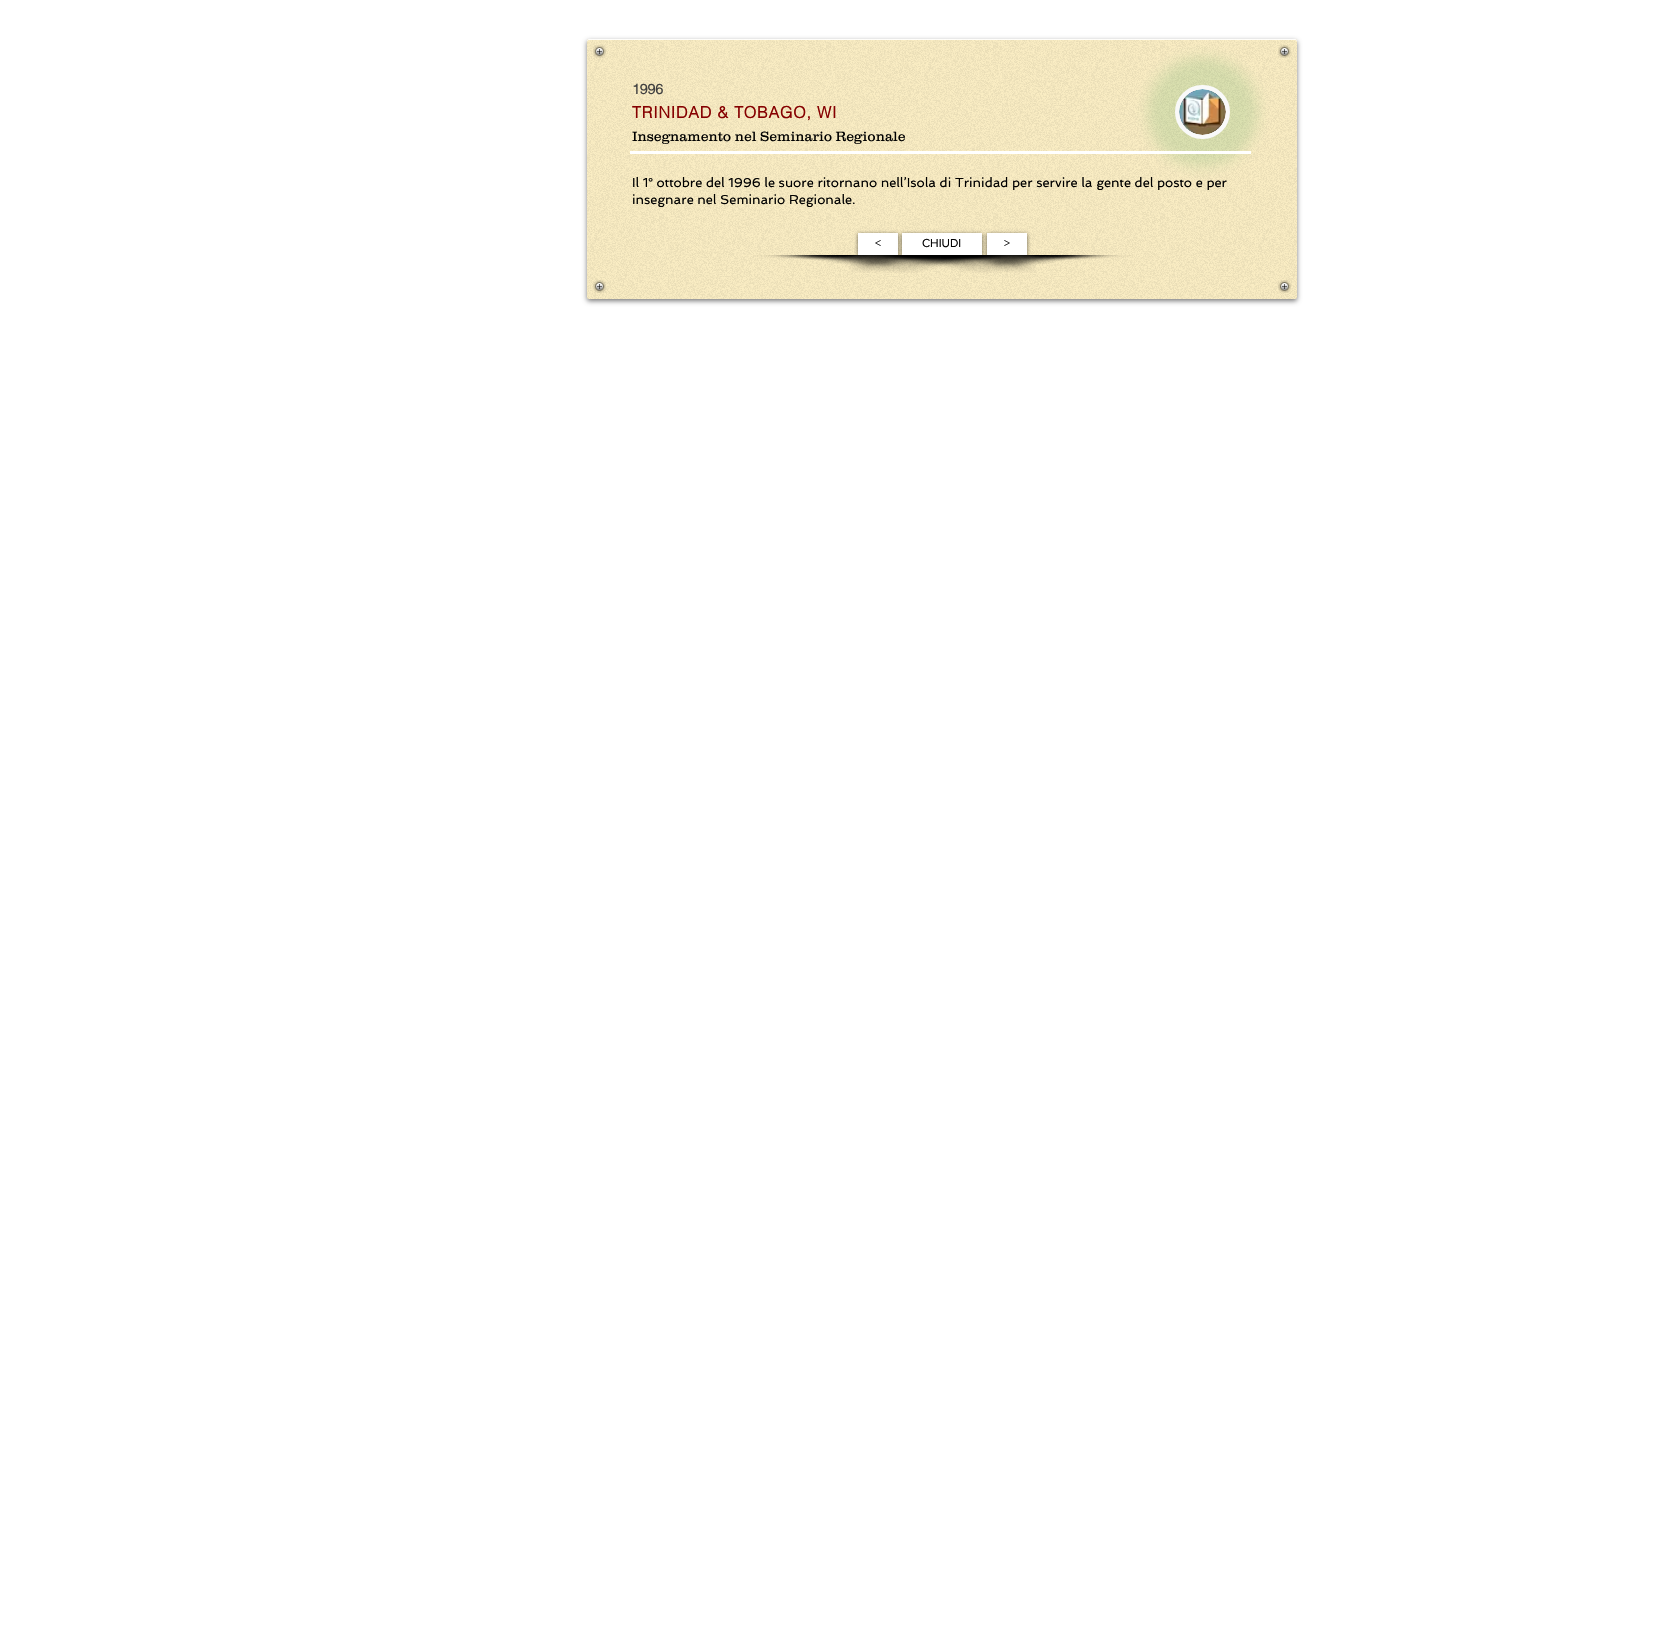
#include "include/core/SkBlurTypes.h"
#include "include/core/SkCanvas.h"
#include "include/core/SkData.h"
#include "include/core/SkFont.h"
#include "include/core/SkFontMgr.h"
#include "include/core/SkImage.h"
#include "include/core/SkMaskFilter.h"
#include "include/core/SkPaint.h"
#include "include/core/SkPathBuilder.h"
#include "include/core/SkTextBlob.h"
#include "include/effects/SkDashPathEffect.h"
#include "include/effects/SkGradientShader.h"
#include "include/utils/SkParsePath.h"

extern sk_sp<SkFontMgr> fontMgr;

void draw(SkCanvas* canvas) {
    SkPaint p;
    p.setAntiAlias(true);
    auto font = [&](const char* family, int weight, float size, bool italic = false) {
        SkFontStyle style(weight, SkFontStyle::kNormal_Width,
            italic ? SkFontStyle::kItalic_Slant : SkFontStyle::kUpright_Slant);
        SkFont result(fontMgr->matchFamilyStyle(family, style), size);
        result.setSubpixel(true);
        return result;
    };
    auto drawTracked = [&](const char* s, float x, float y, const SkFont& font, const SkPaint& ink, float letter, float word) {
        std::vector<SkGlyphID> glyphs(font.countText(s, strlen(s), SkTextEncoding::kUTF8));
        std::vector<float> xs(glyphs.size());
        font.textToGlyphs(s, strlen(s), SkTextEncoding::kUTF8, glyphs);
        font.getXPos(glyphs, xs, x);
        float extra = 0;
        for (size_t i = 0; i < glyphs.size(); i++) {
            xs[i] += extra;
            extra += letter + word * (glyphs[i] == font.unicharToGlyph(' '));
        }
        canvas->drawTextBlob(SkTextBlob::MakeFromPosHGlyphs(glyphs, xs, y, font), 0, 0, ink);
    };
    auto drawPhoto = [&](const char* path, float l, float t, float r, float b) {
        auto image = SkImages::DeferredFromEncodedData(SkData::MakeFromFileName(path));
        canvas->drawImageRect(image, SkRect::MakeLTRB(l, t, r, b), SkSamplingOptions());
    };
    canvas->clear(0xFFFFFFFF);
    p.setColor(0x87000000);
    p.setMaskFilter(SkMaskFilter::MakeBlur(kNormal_SkBlurStyle, 2.5f));
    canvas->drawRoundRect(SkRect::MakeLTRB(587, 41, 1297, 301), 2, 2, p);
    p.setMaskFilter(nullptr);
    p.setColor(0xFFFAEDC3);
    canvas->drawRoundRect(SkRect::MakeLTRB(587, 39, 1297, 299), 2, 2, p);
    drawPhoto("media/1.png", 587, 39, 1297, 299);
    p.setColor(0xEBFFFFFF);
    canvas->drawPath(SkPathBuilder().moveTo(589, 40).lineTo(1295, 40).cubicTo(1296, 40, 1297, 41, 1297, 42).cubicTo(1297, 41, 1297, 39, 1295, 39).lineTo(589, 39).cubicTo(587, 39, 587, 41, 587, 42).cubicTo(587, 41, 588, 40, 589, 40).close().detach(), p);
    drawPhoto("media/2.png", 593, 45, 606, 58);
    drawPhoto("media/3.png", 1278, 45, 1291, 58);
    auto font1 = font("helvetica", 700, 14);
    p.setColor(0xFF404040);
    canvas->drawString("1996", 632, 94, font1, p);
    p.setColor(0x3358A860);
    p.setMaskFilter(SkMaskFilter::MakeBlur(kNormal_SkBlurStyle, 7));
    canvas->drawRoundRect(SkRect::MakeLTRB(1147, 57, 1258, 167), 55, 55, p);
    p.setMaskFilter(nullptr);
    p.setColor(0xFFF9F9F9);
    canvas->drawRoundRect(SkRect::MakeLTRB(1177, 87, 1228, 137), 25, 25, p);
    p.setStyle(SkPaint::kStroke_Style);
    p.setStrokeWidth(4);
    canvas->drawRoundRect(SkRect::MakeLTRB(1177, 87, 1228, 137), 25, 25, p);
    drawPhoto("media/4.png", 1179, 89, 1226, 135);
    auto font2 = font("helvetica", 700, 16);
    p.setStyle(SkPaint::kFill_Style);
    p.setColor(0xFF860000);
    drawTracked("TRINIDAD & TOBAGO, WI", 632, 118, font2, p, 0.8f, 0);
    auto font3 = font("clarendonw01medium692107", 300, 14);
    p.setColor(0xFF000000);
    canvas->drawString("Insegnamento nel Seminario Regionale", 632, 141, font3, p);
    p.setColor(0xFFFFFFFF);
    canvas->drawRect(SkRect::MakeLTRB(630, 151, 1251, 154), p);
    auto font4 = font("Spinnaker", 400, 13);
    p.setColor(0xFF000000);
    canvas->drawString("Il 1° ottobre del 1996 le suore ritornano nell’Isola di Trinidad per servire la gente del posto e per", 632, 187, font4, p);
    canvas->drawString("insegnare nel Seminario Regionale.", 632, 204, font4, p);
    drawPhoto("media/6.png", 849, 255, 1003, 273);
    drawPhoto("media/5.png", 753, 255, 907, 273);
    p.setColor(0x99000000);
    p.setMaskFilter(SkMaskFilter::MakeBlur(kNormal_SkBlurStyle, 2));
    canvas->drawRect(SkRect::MakeLTRB(858, 234, 898, 256), p);
    p.setMaskFilter(nullptr);
    p.setColor(0xFFFFFFFF);
    canvas->drawRect(SkRect::MakeLTRB(858, 233, 898, 255), p);
    auto font5 = font("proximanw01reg", 400, 12);
    p.setColor(0xFF000000);
    canvas->drawString("<", 875, 247, font5, p);
    drawPhoto("media/8.png", 893, 255, 1037, 273);
    drawPhoto("media/7.png", 863, 255, 991, 273);
    p.setColor(0x99000000);
    p.setMaskFilter(SkMaskFilter::MakeBlur(kNormal_SkBlurStyle, 2));
    canvas->drawRect(SkRect::MakeLTRB(902, 234, 982, 256), p);
    p.setMaskFilter(nullptr);
    p.setColor(0xFFFFFFFF);
    canvas->drawRect(SkRect::MakeLTRB(902, 233, 982, 255), p);
    p.setColor(0xFF000000);
    canvas->drawString("CHIUDI", 922, 247, font5, p);
    drawPhoto("media/10.png", 978, 255, 1132, 273);
    drawPhoto("media/9.png", 941, 255, 1036, 273);
    p.setColor(0x99000000);
    p.setMaskFilter(SkMaskFilter::MakeBlur(kNormal_SkBlurStyle, 2));
    canvas->drawRect(SkRect::MakeLTRB(987, 234, 1027, 256), p);
    p.setMaskFilter(nullptr);
    p.setColor(0xFFFFFFFF);
    canvas->drawRect(SkRect::MakeLTRB(987, 233, 1027, 255), p);
    p.setColor(0xFF000000);
    canvas->drawString(">", 1004, 247, font5, p);
    drawPhoto("media/11.png", 593, 280, 606, 293);
    drawPhoto("media/12.png", 1278, 280, 1291, 293);
}
